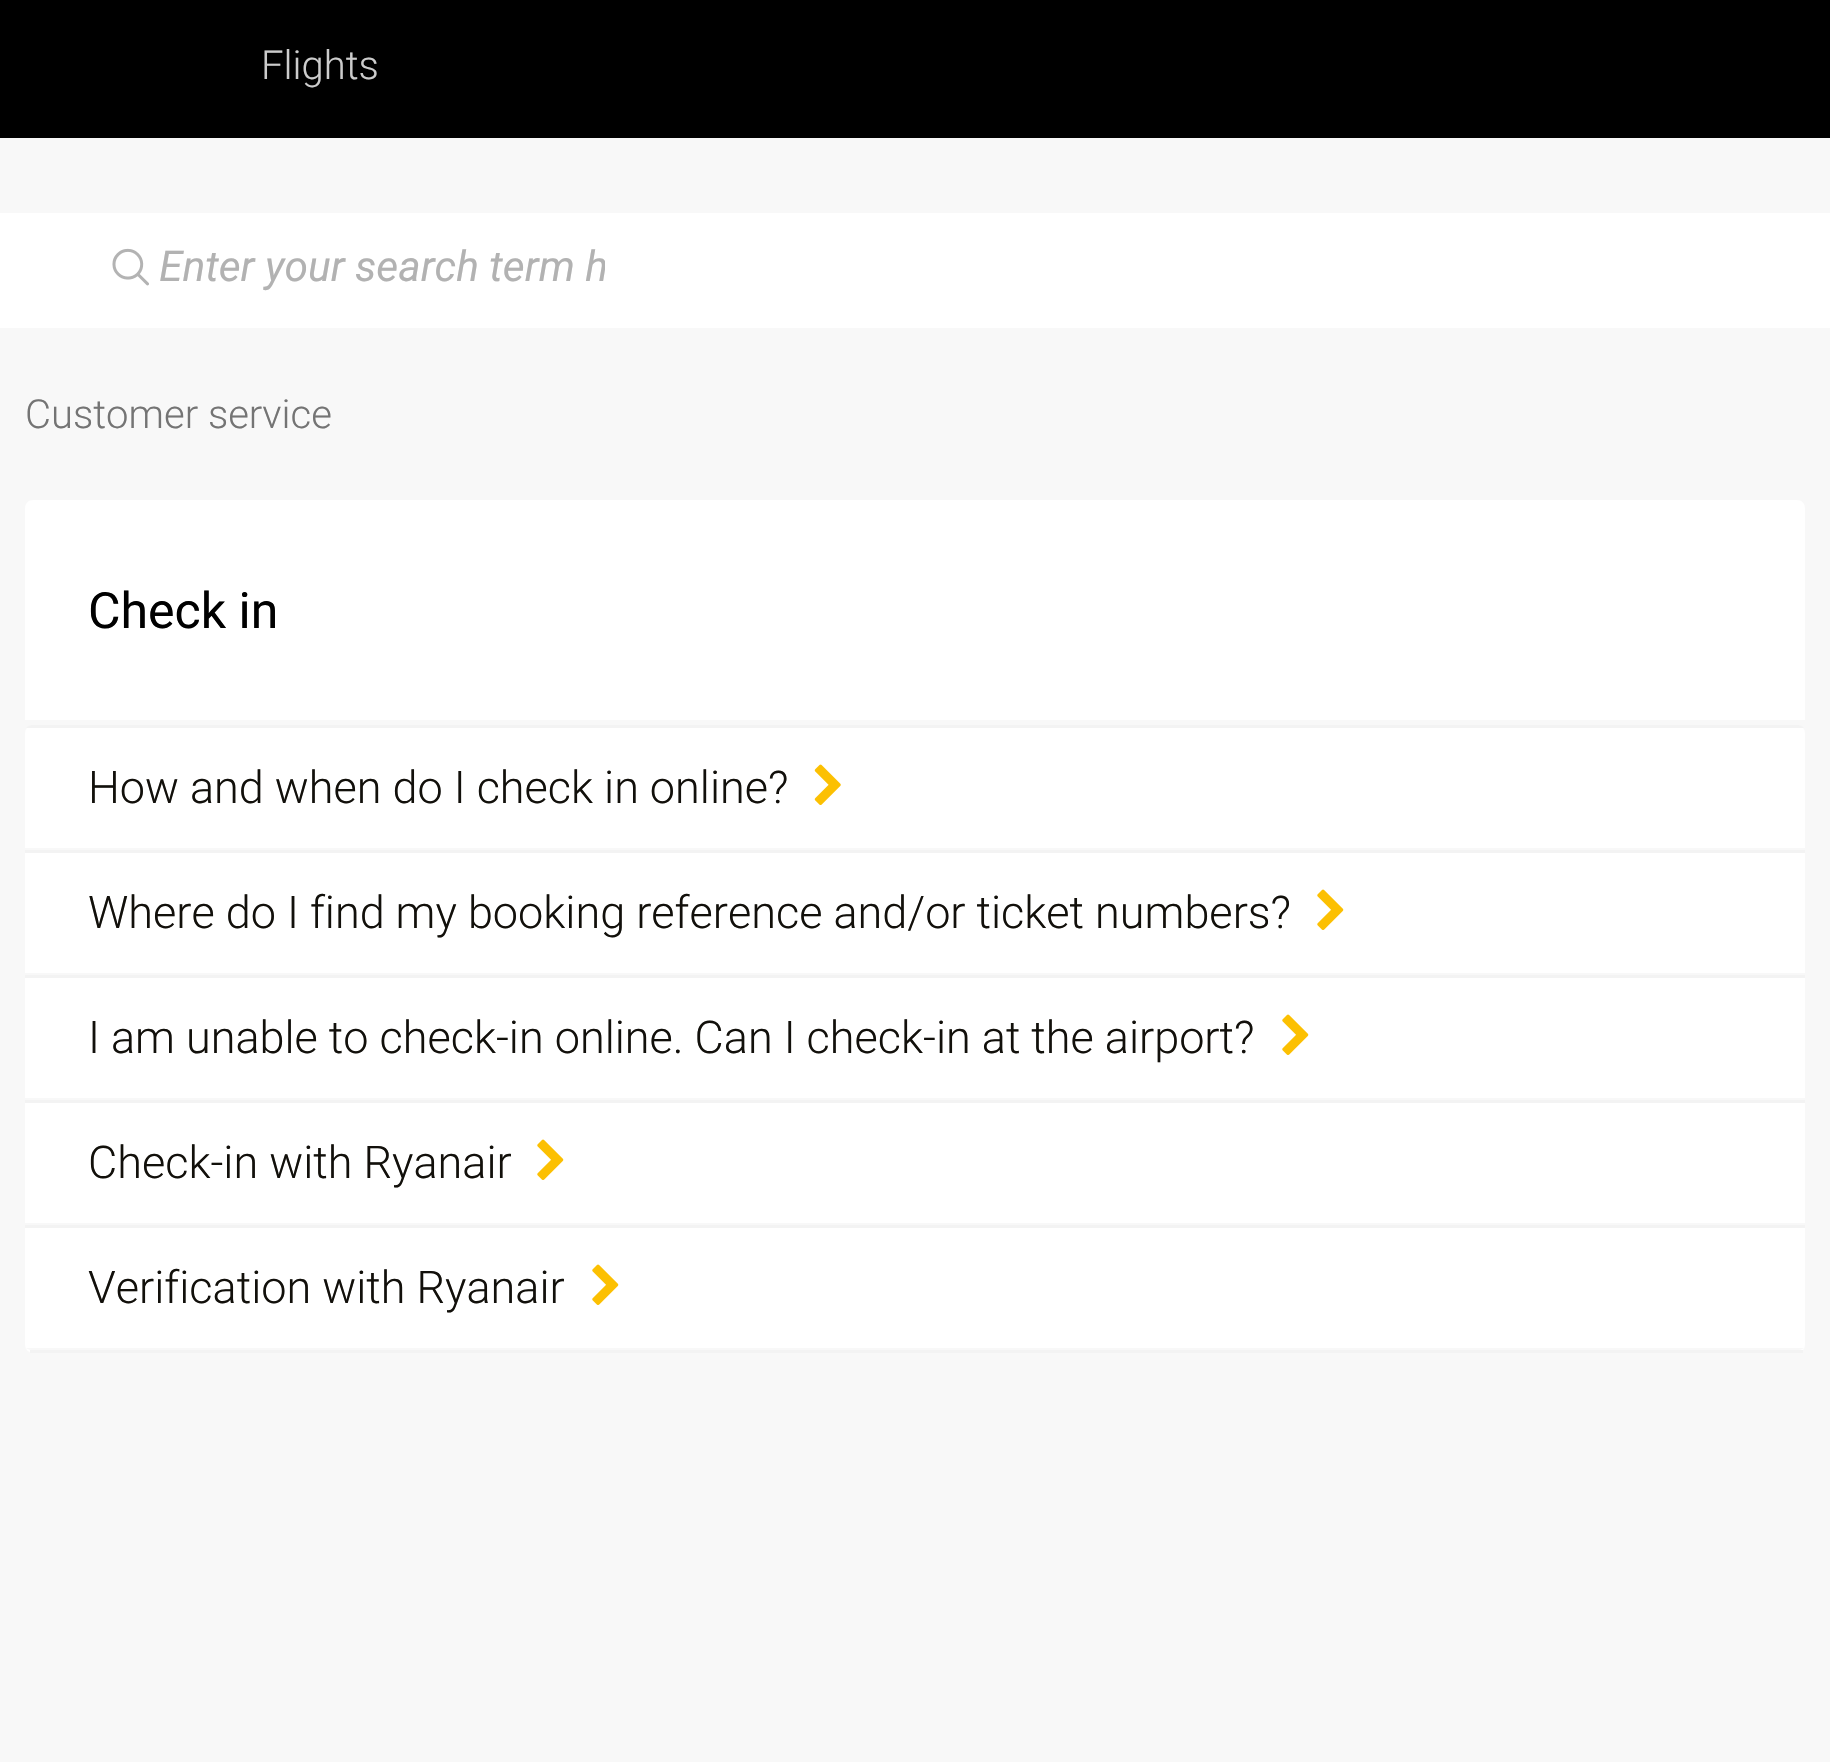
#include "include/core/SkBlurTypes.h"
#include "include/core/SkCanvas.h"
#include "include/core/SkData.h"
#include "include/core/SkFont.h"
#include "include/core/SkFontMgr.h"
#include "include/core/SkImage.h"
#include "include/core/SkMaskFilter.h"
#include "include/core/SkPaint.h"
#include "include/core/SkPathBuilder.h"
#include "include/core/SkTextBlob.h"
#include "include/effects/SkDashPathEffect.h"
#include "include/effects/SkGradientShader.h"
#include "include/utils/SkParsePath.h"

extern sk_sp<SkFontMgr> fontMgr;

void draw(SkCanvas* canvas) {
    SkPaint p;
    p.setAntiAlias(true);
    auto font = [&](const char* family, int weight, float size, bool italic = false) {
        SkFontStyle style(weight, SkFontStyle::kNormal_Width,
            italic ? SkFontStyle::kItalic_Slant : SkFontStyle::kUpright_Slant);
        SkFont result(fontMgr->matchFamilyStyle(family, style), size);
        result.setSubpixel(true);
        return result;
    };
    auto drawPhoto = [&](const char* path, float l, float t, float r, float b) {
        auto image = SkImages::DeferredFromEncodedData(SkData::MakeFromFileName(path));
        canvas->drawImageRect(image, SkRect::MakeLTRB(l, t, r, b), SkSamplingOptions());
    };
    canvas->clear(0xFFF8F8F8);
    p.setColor(0xFF000000);
    canvas->drawRect(SkRect::MakeLTRB(0, 0, 1830, 138), p);
    auto font1 = font("Roboto", 300, 40);
    p.setColor(0xFFCCCCCC);
    canvas->drawString("Flights", 261, 79, font1, p);
    p.setColor(0xFFFFFFFF);
    canvas->drawRect(SkRect::MakeLTRB(0, 213, 1830, 328), p);
    drawPhoto("media/1.png", 112, 248, 149, 286);
    canvas->save();
    canvas->clipRect(SkRect::MakeLTRB(160, 243, 605, 293));
    auto font2 = font("Roboto", 400, 42.5f, true);
    p.setColor(0xFFB2B2B2);
    canvas->drawString("Enter your search term h", 159, 281, font2, p);
    canvas->restore();
    p.setColor(0xFF747474);
    canvas->drawString("Customer service", 25, 428, font1, p);
    p.setColor(0xFFFFFFFF);
    canvas->drawPath(SkPathBuilder().moveTo(33, 500).lineTo(1797, 500).cubicTo(1801.5f, 500, 1805, 503.5f, 1805, 508).lineTo(1805, 725).lineTo(25, 725).lineTo(25, 508).cubicTo(25, 503.5f, 28.5f, 500, 33, 500).close().detach(), p);
    p.setColor(0xFFF8F8F8);
    canvas->drawRect(SkRect::MakeLTRB(25, 720, 1805, 725), p);
    auto font3 = font("Roboto", 400, 50);
    p.setColor(0xFF000000);
    canvas->drawString("Check in", 88, 628, font3, p);
    p.setColor(0xFFFFFFFF);
    canvas->drawRoundRect(SkRect::MakeLTRB(25, 725, 1805, 1353), 8, 8, p);
    p.setColor(0xFFF3F3F3);
    canvas->drawRect(SkRect::MakeLTRB(30, 1350, 1803, 1353), p);
    canvas->drawPath(SkPathBuilder().moveTo(32, 725).lineTo(1798, 725).cubicTo(1800, 725, 1802, 726, 1804, 728).lineTo(26, 728).cubicTo(28, 726, 30, 725, 32, 725).close().detach(), p);
    p.setColor(0xFFF8F8F8);
    canvas->drawRect(SkRect::MakeLTRB(25, 848, 1805, 850), p);
    auto font4 = font("Roboto", 300, 45);
    p.setColor(0xFF12100B);
    canvas->drawString("How and when do I check in online?", 88, 803, font4, p);
    drawPhoto("media/2.png", 814, 764, 841, 805);
    p.setColor(0xFFF3F3F3);
    canvas->drawRect(SkRect::MakeLTRB(25, 850, 1805, 853), p);
    p.setColor(0xFFF8F8F8);
    canvas->drawRect(SkRect::MakeLTRB(25, 973, 1805, 975), p);
    p.setColor(0xFF12100B);
    canvas->drawString("Where do I find my booking reference and/or ticket numbers?", 88, 928, font4, p);
    drawPhoto("media/3.png", 1317, 889, 1344, 930);
    p.setColor(0xFFF3F3F3);
    canvas->drawRect(SkRect::MakeLTRB(25, 975, 1805, 978), p);
    p.setColor(0xFFF8F8F8);
    canvas->drawRect(SkRect::MakeLTRB(25, 1098, 1805, 1100), p);
    p.setColor(0xFF12100B);
    canvas->drawString("I am unable to check-in online. Can I check-in at the airport?", 88, 1053, font4, p);
    drawPhoto("media/3.png", 1282, 1014, 1309, 1055);
    p.setColor(0xFFF3F3F3);
    canvas->drawRect(SkRect::MakeLTRB(25, 1100, 1805, 1103), p);
    p.setColor(0xFFF8F8F8);
    canvas->drawRect(SkRect::MakeLTRB(25, 1223, 1805, 1225), p);
    p.setColor(0xFF12100B);
    canvas->drawString("Check-in with Ryanair", 88, 1178, font4, p);
    drawPhoto("media/3.png", 537, 1139, 564, 1180);
    p.setColor(0xFFF3F3F3);
    canvas->drawRect(SkRect::MakeLTRB(25, 1225, 1805, 1228), p);
    p.setColor(0xFFF8F8F8);
    canvas->drawPath(SkPathBuilder().moveTo(1804, 1348).cubicTo(1802, 1349, 1800, 1350, 1798, 1350).lineTo(32, 1350).cubicTo(30, 1350, 28, 1349, 26, 1348).close().detach(), p);
    p.setColor(0xFF12100B);
    canvas->drawString("Verification with Ryanair", 88, 1303, font4, p);
    drawPhoto("media/3.png", 592, 1264, 619, 1305);
}
